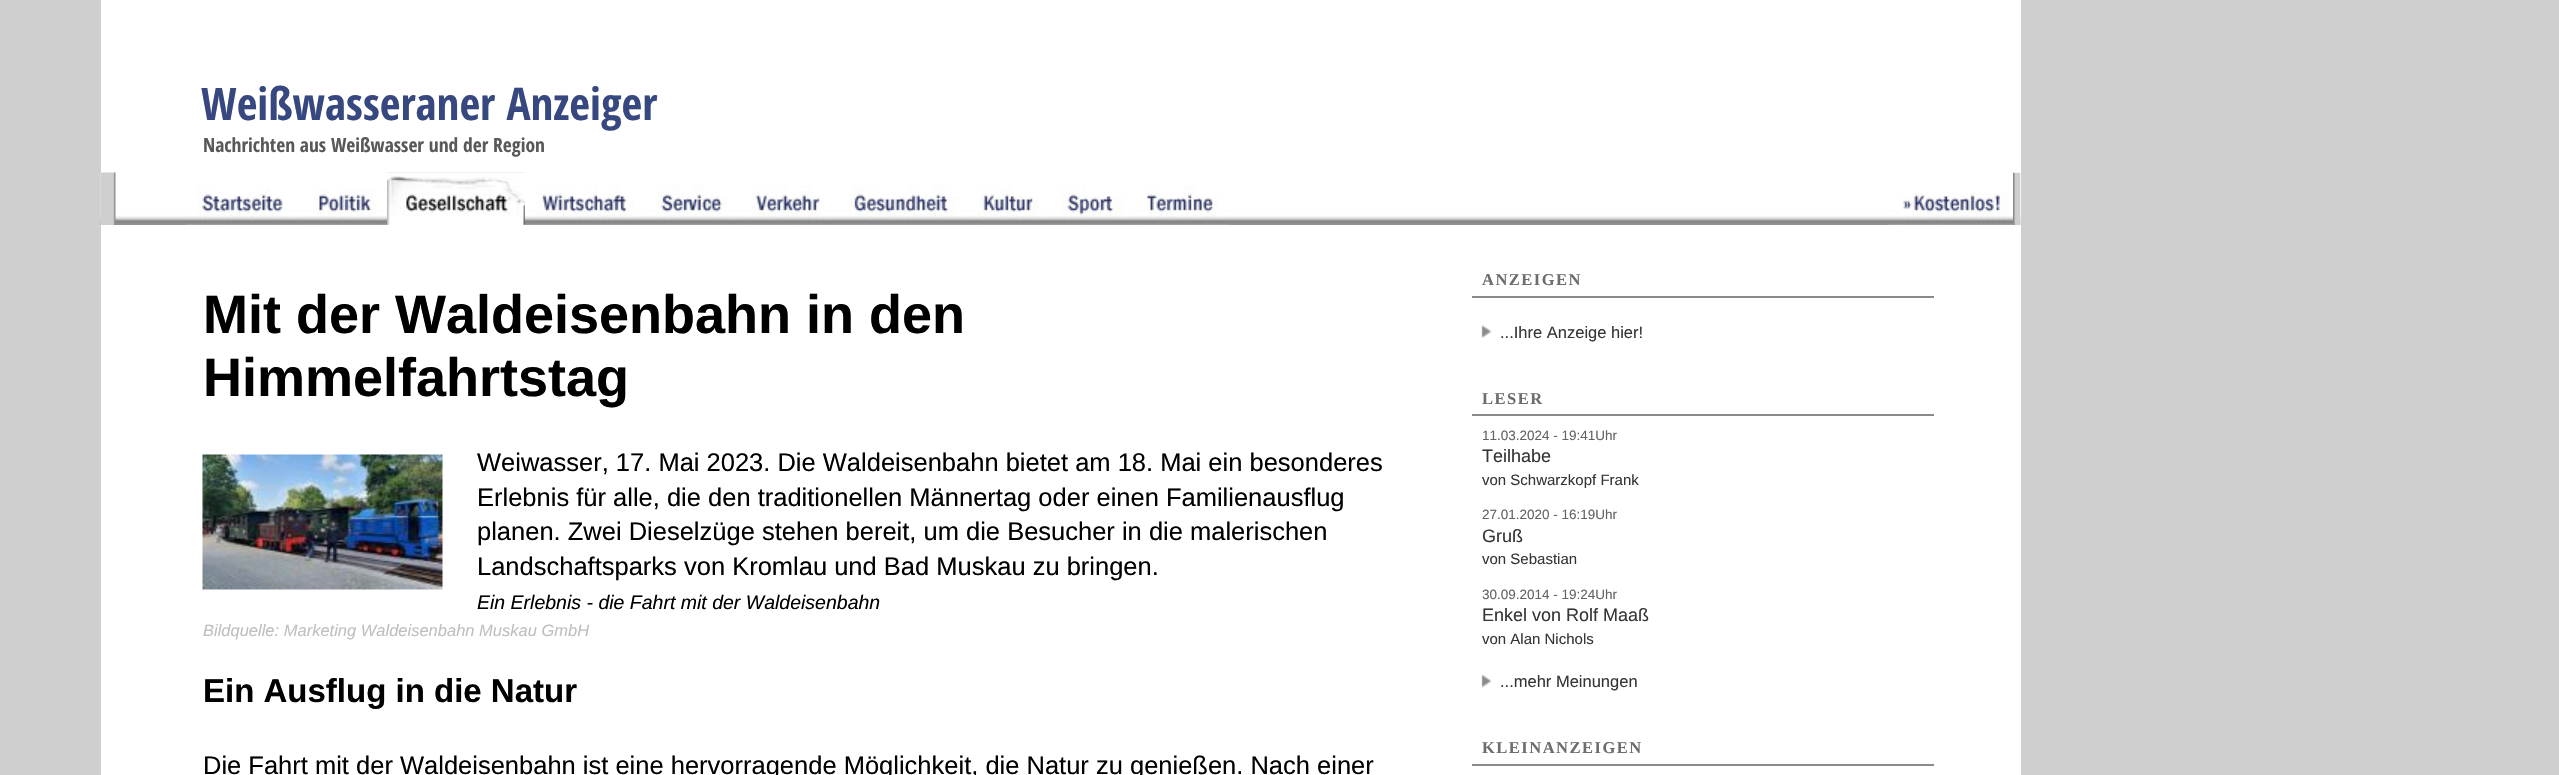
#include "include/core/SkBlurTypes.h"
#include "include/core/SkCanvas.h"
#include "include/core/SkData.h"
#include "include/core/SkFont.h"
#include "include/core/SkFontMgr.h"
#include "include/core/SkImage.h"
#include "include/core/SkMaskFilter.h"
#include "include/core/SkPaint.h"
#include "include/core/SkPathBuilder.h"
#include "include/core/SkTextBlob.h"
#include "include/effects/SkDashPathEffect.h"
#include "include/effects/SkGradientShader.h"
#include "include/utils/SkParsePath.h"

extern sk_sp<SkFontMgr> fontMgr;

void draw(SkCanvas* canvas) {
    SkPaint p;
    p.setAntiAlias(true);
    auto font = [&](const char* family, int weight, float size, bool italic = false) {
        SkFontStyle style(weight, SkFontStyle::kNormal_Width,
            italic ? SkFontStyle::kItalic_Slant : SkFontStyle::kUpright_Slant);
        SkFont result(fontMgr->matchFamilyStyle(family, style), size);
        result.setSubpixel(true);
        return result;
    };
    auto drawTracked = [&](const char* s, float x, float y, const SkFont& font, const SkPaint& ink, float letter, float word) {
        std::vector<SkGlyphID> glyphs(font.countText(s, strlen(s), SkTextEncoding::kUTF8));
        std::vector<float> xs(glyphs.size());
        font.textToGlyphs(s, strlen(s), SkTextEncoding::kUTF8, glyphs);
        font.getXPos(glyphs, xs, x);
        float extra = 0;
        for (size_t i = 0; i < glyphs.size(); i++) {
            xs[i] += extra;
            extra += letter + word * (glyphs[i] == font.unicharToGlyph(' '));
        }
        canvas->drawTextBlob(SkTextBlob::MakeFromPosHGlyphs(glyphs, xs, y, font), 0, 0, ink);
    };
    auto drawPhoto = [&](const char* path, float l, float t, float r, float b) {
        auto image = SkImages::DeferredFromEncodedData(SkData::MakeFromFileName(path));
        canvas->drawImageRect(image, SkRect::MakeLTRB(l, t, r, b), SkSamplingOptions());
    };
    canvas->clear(0xFFCFCFCF);
    p.setColor(0xFFFFFFFF);
    canvas->drawRect(SkRect::MakeLTRB(101, 0, 2021, 775), p);
    auto font1 = font("Open Sans Condensed", 700, 45);
    p.setColor(0xFF374880);
    canvas->drawString("Weißwasseraner Anzeiger", 201, 120, font1, p);
    auto font2 = font("Open Sans Condensed", 700, 19.5f);
    p.setColor(0xFF595959);
    canvas->drawString("Nachrichten aus Weißwasser und der Region", 203, 152, font2, p);
    drawPhoto("media/1.png", 100, 172, 2021, 225);
    drawPhoto("media/2.png", 100, 172, 116, 225);
    drawPhoto("media/3.png", 186, 185, 303, 225);
    drawPhoto("media/4.png", 303, 189, 387, 225);
    drawPhoto("media/5.png", 387, 172, 525, 225);
    drawPhoto("media/6.png", 525, 185, 644, 225);
    drawPhoto("media/7.png", 644, 185, 740, 225);
    drawPhoto("media/8.png", 740, 185, 837, 225);
    drawPhoto("media/9.png", 837, 185, 966, 225);
    drawPhoto("media/10.png", 966, 185, 1050, 225);
    drawPhoto("media/11.png", 1050, 186, 1134, 225);
    drawPhoto("media/12.png", 1134, 185, 1230, 225);
    drawPhoto("media/13.png", 2013, 172, 2021, 225);
    drawPhoto("media/14.png", 1888, 193, 2013, 225);
    auto font3 = font("Liberation Sans", 700, 54);
    p.setColor(0xFF000000);
    canvas->drawString("Mit der Waldeisenbahn in den", 203, 333, font3, p);
    canvas->drawString("Himmelfahrtstag", 203, 396, font3, p);
    drawPhoto("media/15.png", 202, 454, 443, 590);
    auto font4 = font("Liberation Sans", 400, 25.5f);
    {
        const struct { const char* s; float x, y; } items[] = {
            {"Weiwasser, 17. Mai 2023. Die Waldeisenbahn bietet am 18. Mai ein besonderes", 477, 471},
            {"Erlebnis für alle, die den traditionellen Männertag oder einen Familienausflug", 477, 506},
            {"planen. Zwei Dieselzüge stehen bereit, um die Besucher in die malerischen", 477, 540},
            {"Landschaftsparks von Kromlau und Bad Muskau zu bringen.", 477, 575},
        };
        for (auto [s, x, y] : items) {
            canvas->drawString(s, x, y, font4, p);
        }
    }
    auto font5 = font("Liberation Sans", 400, 19.5f, true);
    canvas->drawString("Ein Erlebnis - die Fahrt mit der Waldeisenbahn", 477, 609, font5, p);
    auto font6 = font("Liberation Sans", 400, 16.5f, true);
    p.setColor(0xFFBFBFBF);
    canvas->drawString("Bildquelle: Marketing Waldeisenbahn Muskau GmbH", 203, 636, font6, p);
    auto font7 = font("Liberation Sans", 700, 33);
    p.setColor(0xFF000000);
    canvas->drawString("Ein Ausflug in die Natur", 203, 702, font7, p);
    canvas->drawString("Die Fahrt mit der Waldeisenbahn ist eine hervorragende Möglichkeit, die Natur zu genießen. Nach einer", 203, 774, font4, p);
    {
        const struct { float l, t, r, b; SkColor color; } items[] = {
            {1470, 296, 1935, 298, 0xFF8B8B8B},
            {1934, 296, 1935, 298, 0xFFFFFFFF},
            {1470, 296, 1472, 298, 0xFFFFFFFF},
        };
        for (auto [l, t, r, b, color] : items) {
            p.setColor(color);
            canvas->drawRect(SkRect::MakeLTRB(l, t, r, b), p);
        }
    }
    auto font8 = font("Liberation Serif", 700, 16.5f);
    p.setColor(0xFF6D6D6D);
    drawTracked("ANZEIGEN", 1482, 285, font8, p, 1.5f, 0);
    drawPhoto("media/16.png", 1481, 325, 1492, 338);
    auto font9 = font("Liberation Sans", 400, 16.5f);
    p.setColor(0xFF363636);
    canvas->drawString("...Ihre Anzeige hier!", 1500, 338, font9, p);
    {
        const struct { float l, t, r, b; SkColor color; } items[] = {
            {1470, 414, 1935, 416, 0xFF8B8B8B},
            {1934, 414, 1935, 416, 0xFFFFFFFF},
            {1470, 414, 1472, 416, 0xFFFFFFFF},
        };
        for (auto [l, t, r, b, color] : items) {
            p.setColor(color);
            canvas->drawRect(SkRect::MakeLTRB(l, t, r, b), p);
        }
    }
    p.setColor(0xFF6D6D6D);
    drawTracked("LESER", 1482, 404, font8, p, 1.5f, 0);
    auto font10 = font("Liberation Sans", 400, 13.5f);
    p.setColor(0xFF636363);
    canvas->drawString("11.03.2024 - 19:41Uhr", 1482, 440, font10, p);
    auto font11 = font("Liberation Sans", 400, 18);
    p.setColor(0xFF363636);
    canvas->drawString("Teilhabe", 1482, 462, font11, p);
    auto font12 = font("Liberation Sans", 400, 15);
    canvas->drawString("von Schwarzkopf Frank", 1482, 485, font12, p);
    p.setColor(0xFF636363);
    canvas->drawString("27.01.2020 - 16:19Uhr", 1482, 519, font10, p);
    p.setColor(0xFF363636);
    canvas->drawString("Gruß", 1482, 542, font11, p);
    canvas->drawString("von Sebastian", 1482, 564, font12, p);
    p.setColor(0xFF636363);
    canvas->drawString("30.09.2014 - 19:24Uhr", 1482, 599, font10, p);
    p.setColor(0xFF363636);
    canvas->drawString("Enkel von Rolf Maaß", 1482, 621, font11, p);
    canvas->drawString("von Alan Nichols", 1482, 644, font12, p);
    drawPhoto("media/17.png", 1481, 674, 1492, 688);
    canvas->drawString("...mehr Meinungen", 1500, 687, font9, p);
    {
        const struct { float l, t, r, b; SkColor color; } items[] = {
            {1470, 764, 1935, 766, 0xFF8B8B8B},
            {1934, 764, 1935, 766, 0xFFFFFFFF},
            {1470, 764, 1472, 766, 0xFFFFFFFF},
        };
        for (auto [l, t, r, b, color] : items) {
            p.setColor(color);
            canvas->drawRect(SkRect::MakeLTRB(l, t, r, b), p);
        }
    }
    p.setColor(0xFF6D6D6D);
    drawTracked("KLEINANZEIGEN", 1482, 753, font8, p, 1.5f, 0);
}
